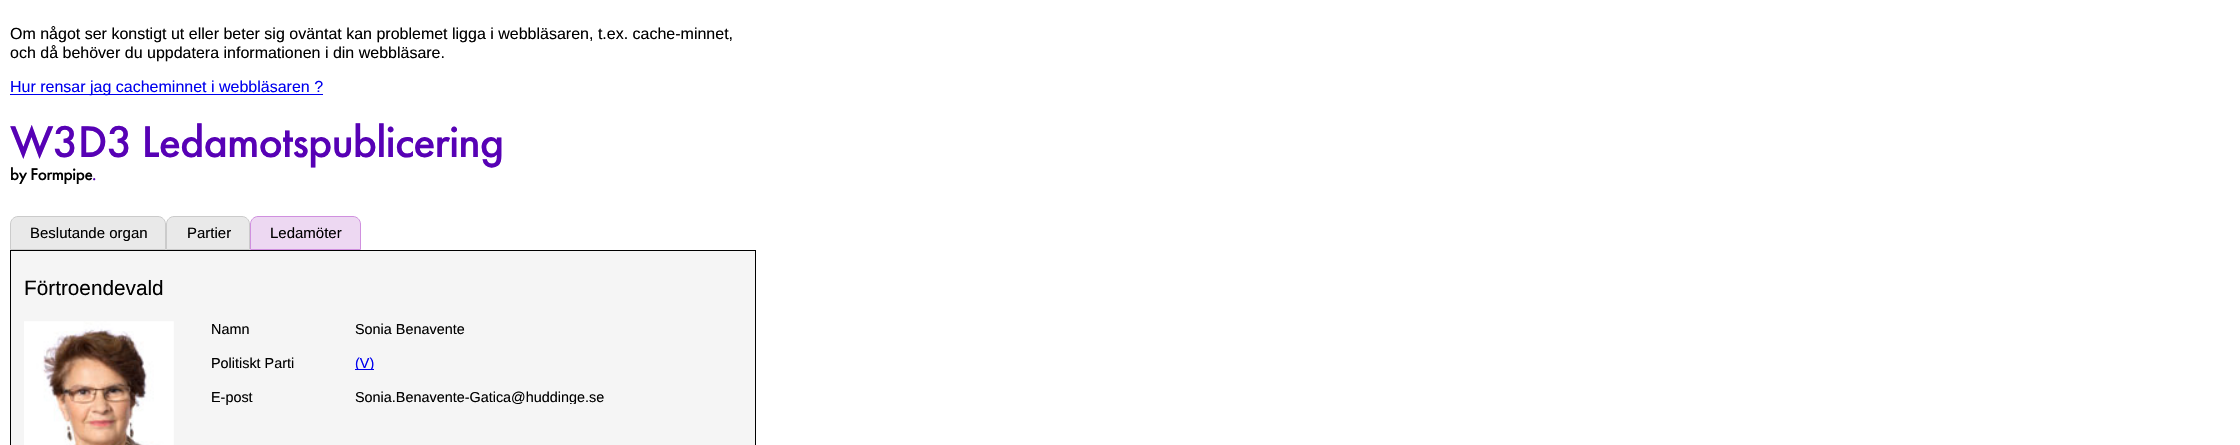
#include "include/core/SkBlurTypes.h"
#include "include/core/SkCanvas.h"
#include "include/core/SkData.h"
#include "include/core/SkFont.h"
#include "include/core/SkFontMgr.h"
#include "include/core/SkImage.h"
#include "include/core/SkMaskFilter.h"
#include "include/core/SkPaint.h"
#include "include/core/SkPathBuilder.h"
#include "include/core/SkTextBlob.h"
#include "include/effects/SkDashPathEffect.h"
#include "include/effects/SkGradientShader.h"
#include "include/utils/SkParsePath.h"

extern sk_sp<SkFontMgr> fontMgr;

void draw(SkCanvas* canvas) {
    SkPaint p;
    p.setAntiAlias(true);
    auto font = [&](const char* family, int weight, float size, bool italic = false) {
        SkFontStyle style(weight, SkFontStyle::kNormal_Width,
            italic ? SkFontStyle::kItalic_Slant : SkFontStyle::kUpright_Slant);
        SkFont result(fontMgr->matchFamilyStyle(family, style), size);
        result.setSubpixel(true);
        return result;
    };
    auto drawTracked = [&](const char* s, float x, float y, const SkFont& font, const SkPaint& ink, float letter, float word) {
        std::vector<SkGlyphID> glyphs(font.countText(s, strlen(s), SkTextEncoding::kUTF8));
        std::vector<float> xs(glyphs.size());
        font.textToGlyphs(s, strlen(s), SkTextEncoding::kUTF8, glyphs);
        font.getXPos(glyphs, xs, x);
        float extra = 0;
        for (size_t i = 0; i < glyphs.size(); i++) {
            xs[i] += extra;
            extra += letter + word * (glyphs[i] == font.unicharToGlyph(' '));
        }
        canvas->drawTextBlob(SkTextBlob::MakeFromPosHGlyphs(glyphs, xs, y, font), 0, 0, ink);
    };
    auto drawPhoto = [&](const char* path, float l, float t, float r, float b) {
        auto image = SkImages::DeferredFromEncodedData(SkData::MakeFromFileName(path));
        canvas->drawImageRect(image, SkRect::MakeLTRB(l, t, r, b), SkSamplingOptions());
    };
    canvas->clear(0xFFFFFFFF);
    auto font1 = font("Liberation Sans", 400, 16);
    p.setColor(0xFF000000);
    canvas->drawString("Om något ser konstigt ut eller beter sig oväntat kan problemet ligga i webbläsaren, t.ex. cache-minnet,", 10, 39, font1, p);
    canvas->drawString("och då behöver du uppdatera informationen i din webbläsare.", 10, 58, font1, p);
    p.setColor(0xFF0000EE);
    canvas->drawRect(SkRect::MakeLTRB(10, 94, 323, 95), p);
    canvas->drawString("Hur rensar jag cacheminnet i webbläsaren ?", 10, 92, font1, p);
    auto font2 = font("Futura PT", 500, 46.25f);
    p.setColor(0xFF5701B5);
    drawTracked("W3D3 Ledamotspublicering", 10, 157, font2, p, -1, 0);
    auto font3 = font("Futura PT", 500, 17.5f);
    p.setColor(0xFF000000);
    drawTracked("by Formpipe", 10, 180, font3, p, -0.5f, 0);
    p.setColor(0xFF5701B5);
    drawTracked(".", 92, 180, font3, p, -0.5f, 0);
    p.setColor(0xFFE9E9E9);
    canvas->drawPath(SkPathBuilder().moveTo(18, 216.5f).lineTo(158, 216.5f).cubicTo(162, 216.5f, 165.5f, 220, 165.5f, 224).lineTo(165.5f, 249.5f).lineTo(10.5f, 249.5f).lineTo(10.5f, 224).cubicTo(10.5f, 220, 14, 216.5f, 18, 216.5f).close().detach(), p);
    p.setStyle(SkPaint::kStroke_Style);
    p.setStrokeWidth(1);
    p.setColor(0xFFCBCBCB);
    canvas->drawPath(SkPathBuilder().moveTo(18, 216.5f).lineTo(158, 216.5f).cubicTo(162, 216.5f, 165.5f, 220, 165.5f, 224).lineTo(165.5f, 249.5f).lineTo(10.5f, 249.5f).lineTo(10.5f, 224).cubicTo(10.5f, 220, 14, 216.5f, 18, 216.5f).close().detach(), p);
    auto font4 = font("Liberation Sans", 400, 15);
    p.setStyle(SkPaint::kFill_Style);
    p.setColor(0xFF000000);
    canvas->drawString("Beslutande organ", 30, 238, font4, p);
    p.setColor(0xFFE9E9E9);
    canvas->drawPath(SkPathBuilder().moveTo(174, 216.5f).lineTo(242, 216.5f).cubicTo(246, 216.5f, 249.5f, 220, 249.5f, 224).lineTo(249.5f, 249.5f).lineTo(166.5f, 249.5f).lineTo(166.5f, 224).cubicTo(166.5f, 220, 170, 216.5f, 174, 216.5f).close().detach(), p);
    p.setStyle(SkPaint::kStroke_Style);
    p.setColor(0xFFCBCBCB);
    canvas->drawPath(SkPathBuilder().moveTo(174, 216.5f).lineTo(242, 216.5f).cubicTo(246, 216.5f, 249.5f, 220, 249.5f, 224).lineTo(249.5f, 249.5f).lineTo(166.5f, 249.5f).lineTo(166.5f, 224).cubicTo(166.5f, 220, 170, 216.5f, 174, 216.5f).close().detach(), p);
    p.setStyle(SkPaint::kFill_Style);
    p.setColor(0xFF000000);
    canvas->drawString("Partier", 187, 238, font4, p);
    p.setColor(0xFFEDD8F2);
    canvas->drawPath(SkPathBuilder().moveTo(258, 216.5f).lineTo(353, 216.5f).cubicTo(357, 216.5f, 360.5f, 220, 360.5f, 224).lineTo(360.5f, 249.5f).lineTo(250.5f, 249.5f).lineTo(250.5f, 224).cubicTo(250.5f, 220, 254, 216.5f, 258, 216.5f).close().detach(), p);
    p.setStyle(SkPaint::kStroke_Style);
    p.setColor(0xFFD090DF);
    canvas->drawPath(SkPathBuilder().moveTo(258, 216.5f).lineTo(353, 216.5f).cubicTo(357, 216.5f, 360.5f, 220, 360.5f, 224).lineTo(360.5f, 249.5f).lineTo(250.5f, 249.5f).lineTo(250.5f, 224).cubicTo(250.5f, 220, 254, 216.5f, 258, 216.5f).close().detach(), p);
    p.setStyle(SkPaint::kFill_Style);
    p.setColor(0xFF000000);
    canvas->drawString("Ledamöter", 270, 238, font4, p);
    p.setColor(0xFFF5F5F5);
    canvas->drawRect(SkRect::MakeLTRB(10.5f, 250.5f, 755.5f, 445.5f), p);
    p.setStyle(SkPaint::kStroke_Style);
    p.setColor(0xFF000000);
    canvas->drawRect(SkRect::MakeLTRB(10.5f, 250.5f, 755.5f, 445.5f), p);
    auto font5 = font("Liberation Sans", 400, 20.75f);
    p.setStyle(SkPaint::kFill_Style);
    canvas->drawString("Förtroendevald", 24, 295, font5, p);
    drawPhoto("media/1.png", 24, 321, 174, 445);
    auto font6 = font("Liberation Sans", 400, 14.4f);
    {
        const struct { const char* s; float x, y; } items[] = {
            {"Namn", 211, 334},
            {"Sonia Benavente", 355, 334},
            {"Politiskt Parti", 211, 368},
        };
        for (auto [s, x, y] : items) {
            canvas->drawString(s, x, y, font6, p);
        }
    }
    p.setColor(0xFF0000EE);
    canvas->drawRect(SkRect::MakeLTRB(355, 369, 374, 370), p);
    canvas->save();
    canvas->clipRect(SkRect::MakeLTRB(355, 355, 374, 370));
    canvas->drawString("(V)", 355, 368, font6, p);
    canvas->restore();
    p.setColor(0xFF000000);
    canvas->drawString("E-post", 211, 402, font6, p);
    canvas->save();
    canvas->clipRect(SkRect::MakeLTRB(355, 389, 604, 404));
    canvas->drawString("Sonia.Benavente-Gatica@huddinge.se", 355, 402, font6, p);
    canvas->restore();
}
